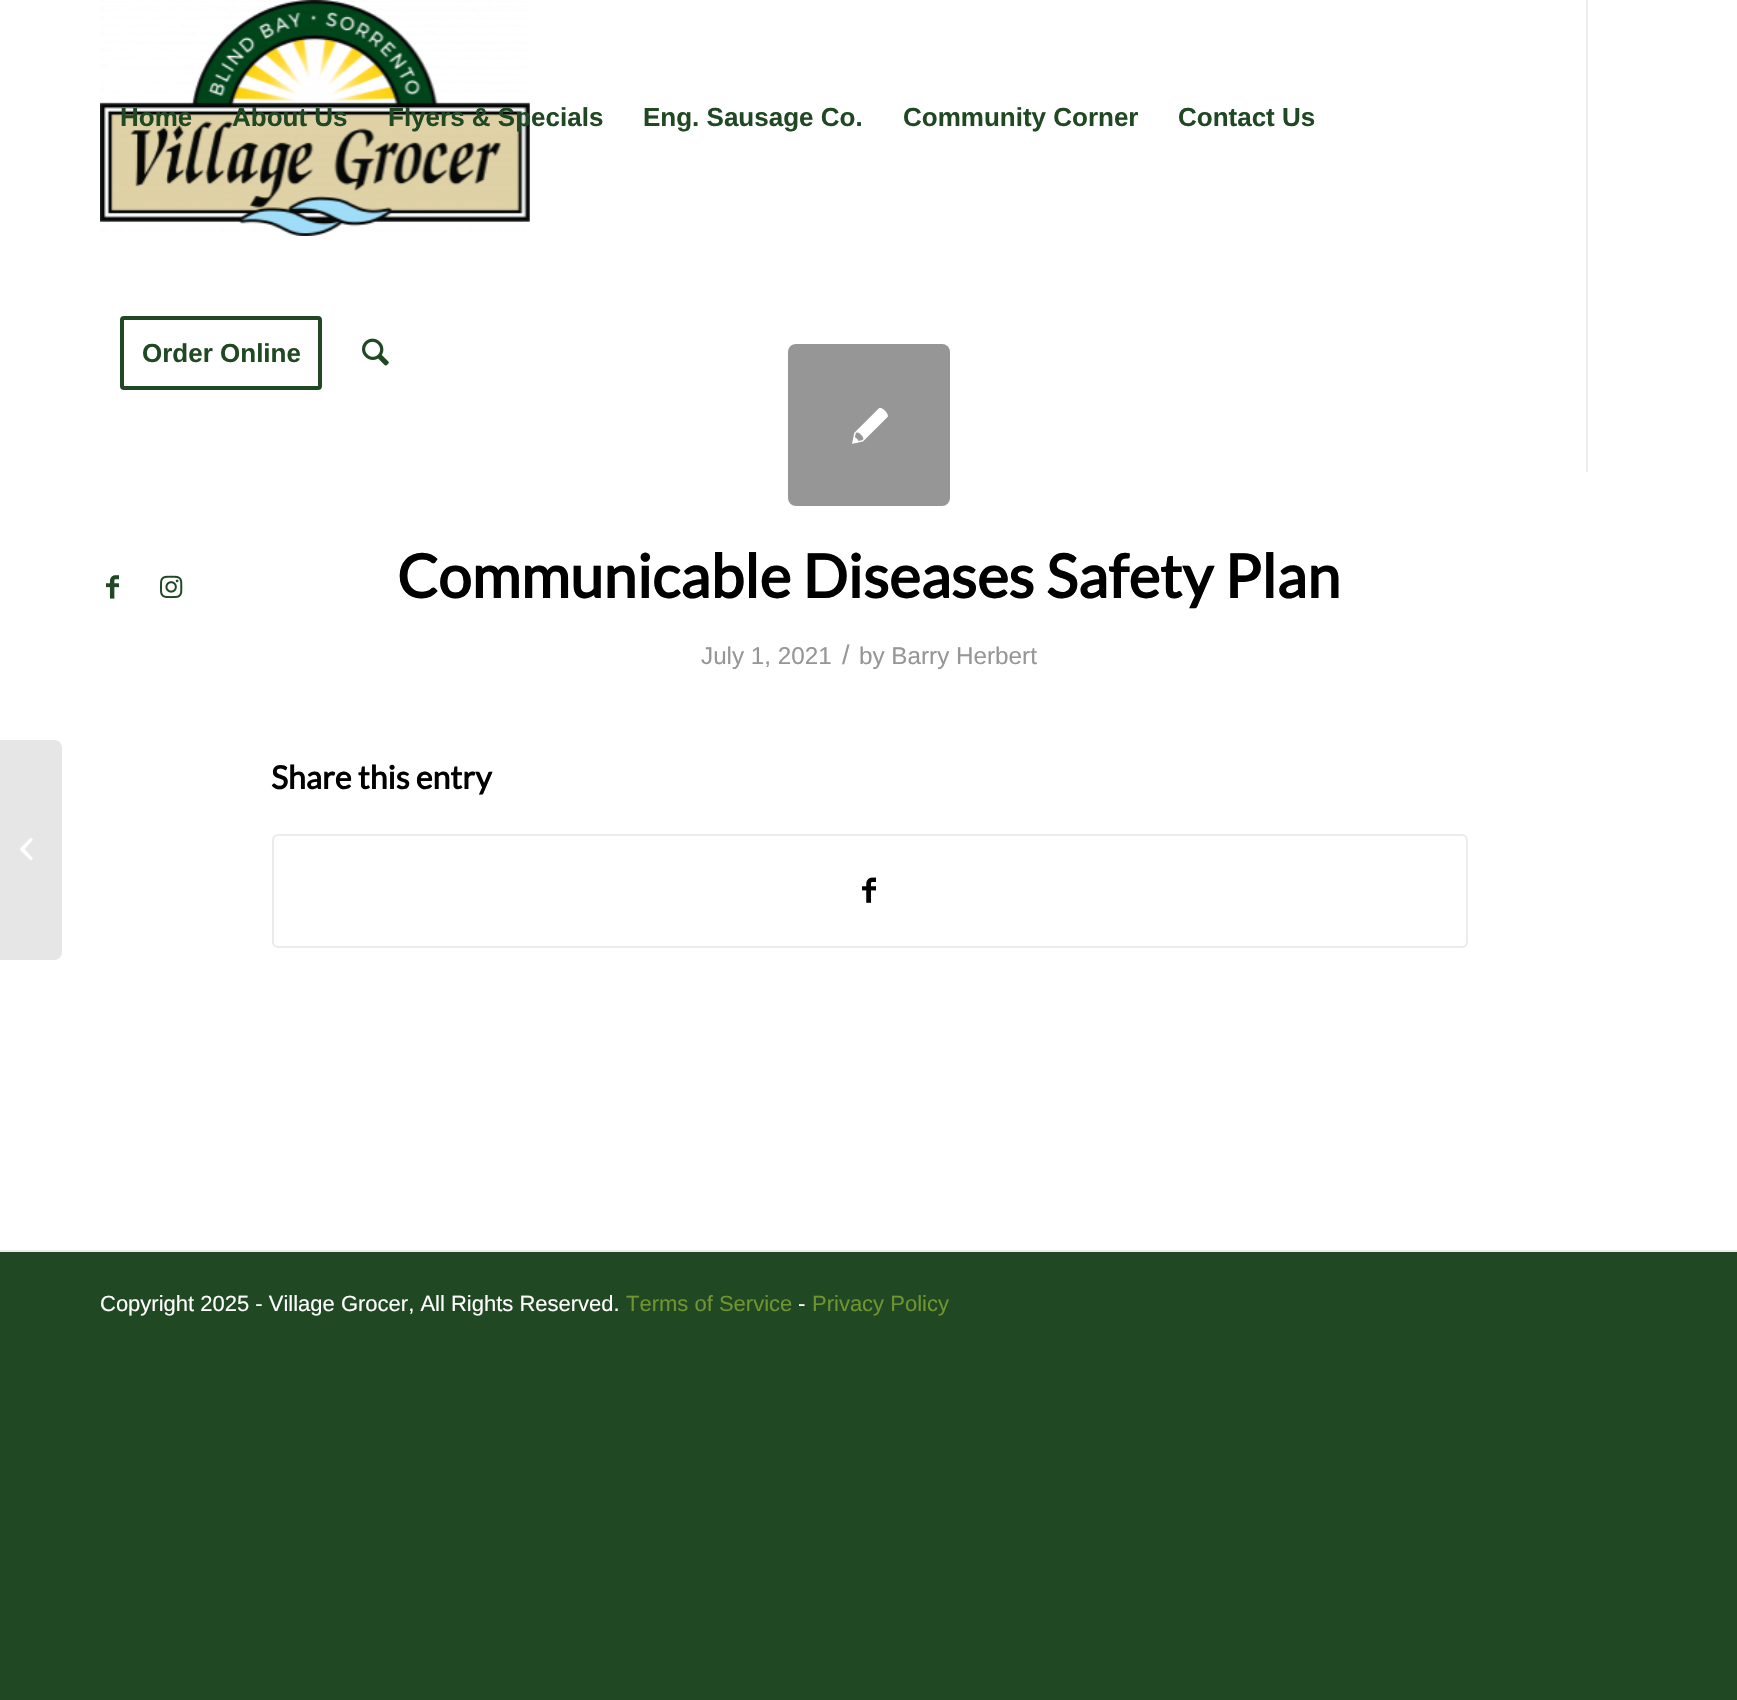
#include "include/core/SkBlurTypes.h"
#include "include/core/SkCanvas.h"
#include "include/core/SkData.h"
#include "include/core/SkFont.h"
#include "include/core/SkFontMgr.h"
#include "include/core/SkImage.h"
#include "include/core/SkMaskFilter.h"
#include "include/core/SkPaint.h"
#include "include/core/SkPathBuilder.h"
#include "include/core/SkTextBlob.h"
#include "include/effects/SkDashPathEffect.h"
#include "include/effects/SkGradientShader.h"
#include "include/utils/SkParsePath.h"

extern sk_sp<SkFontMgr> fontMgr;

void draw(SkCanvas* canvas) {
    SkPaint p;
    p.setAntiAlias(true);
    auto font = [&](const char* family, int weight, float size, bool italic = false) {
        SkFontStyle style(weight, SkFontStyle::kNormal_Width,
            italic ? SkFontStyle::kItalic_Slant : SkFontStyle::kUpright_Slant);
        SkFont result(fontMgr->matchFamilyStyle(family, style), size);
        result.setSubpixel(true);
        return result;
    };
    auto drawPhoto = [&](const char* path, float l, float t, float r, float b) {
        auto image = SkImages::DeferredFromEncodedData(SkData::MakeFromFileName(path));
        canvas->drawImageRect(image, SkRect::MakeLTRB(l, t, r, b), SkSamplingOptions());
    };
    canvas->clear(0xFF204823);
    p.setColor(0xFFFFFFFF);
    canvas->drawRect(SkRect::MakeLTRB(0, 0, 1737, 1250), p);
    drawPhoto("media/1.png", 100, 0, 530, 236);
    p.setColor(0xFFEBEBEB);
    canvas->drawRect(SkRect::MakeLTRB(1586, 0, 1588, 472), p);
    auto font1 = font("Liberation Sans", 700, 26);
    p.setColor(0xFF204823);
    {
        const struct { const char* s; float x, y; } items[] = {
            {"Home", 120, 126},
            {"About Us", 232, 126},
            {"Flyers & Specials", 388, 126},
            {"Eng. Sausage Co.", 643, 126},
            {"Community Corner", 903, 126},
            {"Contact Us", 1178, 126},
        };
        for (auto [s, x, y] : items) {
            canvas->drawString(s, x, y, font1, p);
        }
    }
    p.setStyle(SkPaint::kStroke_Style);
    p.setStrokeWidth(4);
    canvas->drawRoundRect(SkRect::MakeLTRB(122, 318, 320, 388), 2, 2, p);
    p.setStyle(SkPaint::kFill_Style);
    canvas->drawString("Order Online", 142, 362, font1, p);
    drawPhoto("media/2.png", 362, 338, 389, 366);
    drawPhoto("media/3.png", 106, 575, 119, 599);
    drawPhoto("media/4.png", 160, 575, 183, 599);
    p.setColor(0xFFE6E6E6);
    canvas->drawPath(SkPathBuilder().moveTo(0, 740).lineTo(54, 740).cubicTo(58.5f, 740, 62, 743.5f, 62, 748).lineTo(62, 952).cubicTo(62, 956.5f, 58.5f, 960, 54, 960).lineTo(0, 960).close().detach(), p);
    drawPhoto("media/5.png", 20, 838, 33, 860);
    p.setColor(0xFF969696);
    canvas->drawRoundRect(SkRect::MakeLTRB(788, 344, 950, 506), 8, 8, p);
    drawPhoto("media/6.png", 852, 407, 888, 444);
    auto font2 = font("Lato", 700, 60);
    p.setColor(0xFF000000);
    canvas->drawString("Communicable Diseases Safety Plan", 397, 598, font2, p);
    auto font3 = font("Liberation Sans", 400, 24.25f);
    p.setColor(0xFF969696);
    canvas->drawString("July 1, 2021", 701, 664, font3, p);
    auto font4 = font("Liberation Sans", 400, 27);
    canvas->drawString("/", 842, 664, font4, p);
    canvas->drawString("by Barry Herbert", 859, 664, font3, p);
    auto font5 = font("Lato", 700, 32);
    p.setColor(0xFF000000);
    canvas->drawString("Share this entry", 271, 789, font5, p);
    p.setStyle(SkPaint::kStroke_Style);
    p.setStrokeWidth(2);
    p.setColor(0xFFEBEBEB);
    canvas->drawRoundRect(SkRect::MakeLTRB(273, 835, 1467, 947), 5, 5, p);
    drawPhoto("media/7.png", 862, 877, 876, 903);
    p.setStyle(SkPaint::kFill_Style);
    canvas->drawRect(SkRect::MakeLTRB(0, 1250, 1737, 1252), p);
    auto font6 = font("Liberation Sans", 400, 22);
    p.setColor(0xFFFFFFFF);
    canvas->drawString("Copyright 2025 - Village Grocer, All Rights Reserved.", 100, 1311, font6, p);
    p.setColor(0xFF719430);
    canvas->drawString("Terms of Service", 626, 1311, font6, p);
    p.setColor(0xFFFFFFFF);
    canvas->drawString("-", 798, 1311, font6, p);
    p.setColor(0xFF719430);
    canvas->drawString("Privacy Policy", 812, 1311, font6, p);
}
